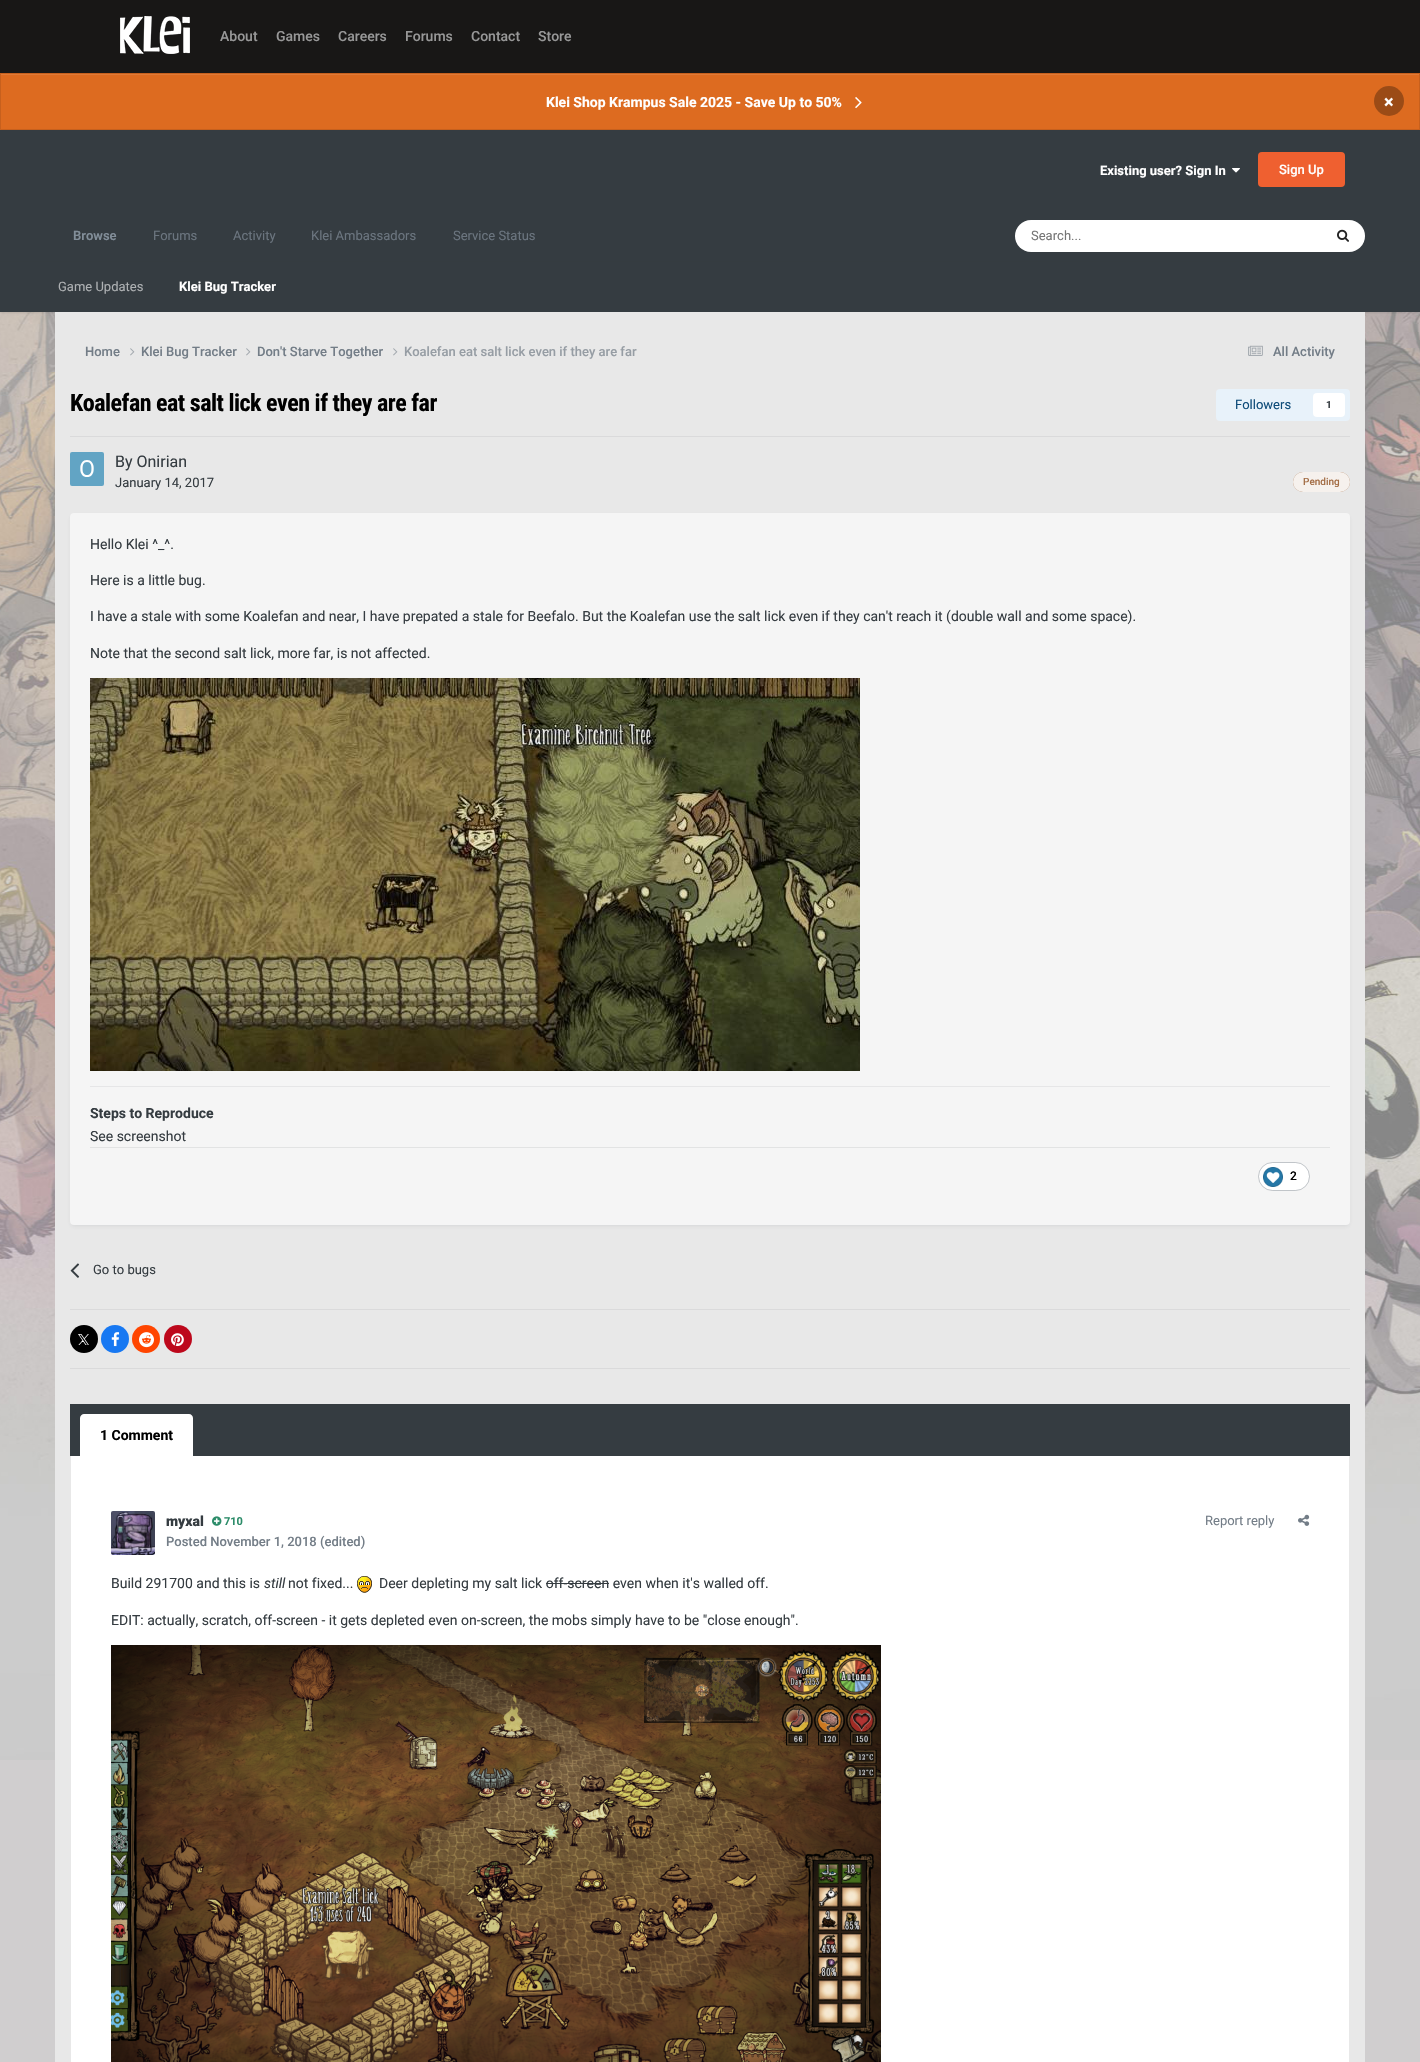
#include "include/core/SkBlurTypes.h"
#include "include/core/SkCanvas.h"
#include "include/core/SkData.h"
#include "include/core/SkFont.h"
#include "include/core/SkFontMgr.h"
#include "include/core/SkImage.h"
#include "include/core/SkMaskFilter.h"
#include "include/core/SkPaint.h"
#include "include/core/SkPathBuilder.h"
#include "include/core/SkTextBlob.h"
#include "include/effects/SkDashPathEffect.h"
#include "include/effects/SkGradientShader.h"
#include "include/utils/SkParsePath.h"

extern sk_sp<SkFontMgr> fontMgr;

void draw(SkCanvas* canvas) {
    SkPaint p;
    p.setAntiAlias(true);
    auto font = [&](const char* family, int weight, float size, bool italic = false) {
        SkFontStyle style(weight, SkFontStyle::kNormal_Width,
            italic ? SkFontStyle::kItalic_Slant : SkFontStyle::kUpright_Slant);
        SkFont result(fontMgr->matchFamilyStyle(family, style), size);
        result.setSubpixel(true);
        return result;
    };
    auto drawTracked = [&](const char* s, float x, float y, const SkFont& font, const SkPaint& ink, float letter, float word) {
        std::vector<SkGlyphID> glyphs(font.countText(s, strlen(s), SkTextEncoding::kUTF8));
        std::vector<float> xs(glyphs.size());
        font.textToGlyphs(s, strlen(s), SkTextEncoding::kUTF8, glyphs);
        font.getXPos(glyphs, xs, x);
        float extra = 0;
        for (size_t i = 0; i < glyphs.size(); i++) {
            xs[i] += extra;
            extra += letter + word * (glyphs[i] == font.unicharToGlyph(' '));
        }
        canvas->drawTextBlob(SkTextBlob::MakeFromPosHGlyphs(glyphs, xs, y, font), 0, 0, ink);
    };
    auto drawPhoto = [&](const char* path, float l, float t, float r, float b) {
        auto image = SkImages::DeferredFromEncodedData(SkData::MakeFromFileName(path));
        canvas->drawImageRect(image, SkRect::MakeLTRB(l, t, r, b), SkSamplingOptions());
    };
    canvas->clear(0xFFD0CECF);
    drawPhoto("media/1.png", 0, 312, 1420, 1760);
    p.setColor(0xFF181716);
    canvas->drawRect(SkRect::MakeLTRB(0, 0, 1420, 73), p);
    drawPhoto("media/2.png", 120, 16, 190, 54);
    auto font1 = font("Roboto", 500, 14);
    p.setColor(0xFF989898);
    {
        const struct { const char* s; float x, y; } items[] = {
            {"About", 220, 41},
            {"Games", 276, 41},
            {"Careers", 338, 41},
            {"Forums", 405, 41},
            {"Contact", 471, 41},
            {"Store", 538, 41},
        };
        for (auto [s, x, y] : items) {
            canvas->drawString(s, x, y, font1, p);
        }
    }
    p.setColor(0xFFDD6B20);
    canvas->drawRect(SkRect::MakeLTRB(1, 75, 1419, 129), p);
    p.setColor(0xFFE07A36);
    canvas->drawRect(SkRect::MakeLTRB(1, 74, 1419, 75), p);
    p.setStyle(SkPaint::kStroke_Style);
    p.setStrokeWidth(1);
    p.setColor(0xFFC7601D);
    canvas->drawRect(SkRect::MakeLTRB(0.5f, 73.5f, 1419.5f, 129.5f), p);
    auto font2 = font("Roboto", 700, 14);
    p.setStyle(SkPaint::kFill_Style);
    p.setColor(0xFFFFFFFF);
    canvas->drawString("Klei Shop Krampus Sale 2025 - Save Up to 50%", 546, 107, font2, p);
    drawPhoto("media/3.png", 855, 97, 862, 109);
    p.setColor(0xFF9B4B16);
    canvas->drawCircle(1389, 101, 15, p);
    auto font3 = font("Roboto", 700, 18);
    p.setColor(0xFFFFFFFF);
    canvas->drawString("×", 1384, 108, font3, p);
    p.setColor(0xFF353C41);
    canvas->drawRect(SkRect::MakeLTRB(0, 130, 1420, 262), p);
    auto font4 = font("Roboto", 700, 13);
    p.setColor(0xFFFFFFFF);
    canvas->drawString("Existing user? Sign In", 1100, 175, font4, p);
    drawPhoto("media/4.png", 1232, 168, 1240, 173);
    p.setColor(0xFFEF6030);
    canvas->drawRoundRect(SkRect::MakeLTRB(1258, 152, 1345, 187), 4, 4, p);
    auto font5 = font("Roboto", 500, 13);
    p.setColor(0xFFFFFFFF);
    canvas->drawString("Sign Up", 1279, 174, font5, p);
    auto font6 = font("Roboto", 600, 13);
    p.setColor(0xFF828E99);
    canvas->drawString("Browse", 73, 240, font6, p);
    p.setColor(0x1A000000);
    p.setMaskFilter(SkMaskFilter::MakeBlur(kNormal_SkBlurStyle, 1));
    canvas->drawRect(SkRect::MakeLTRB(0, 263, 1420, 313), p);
    p.setMaskFilter(nullptr);
    p.setColor(0xFF353C41);
    canvas->drawRect(SkRect::MakeLTRB(0, 262, 1420, 312), p);
    auto font7 = font("Roboto", 400, 13);
    p.setColor(0xFFAEB1B3);
    canvas->drawString("Game Updates", 58, 291, font7, p);
    p.setColor(0xFFFFFFFF);
    canvas->drawString("Klei Bug Tracker", 179, 291, font4, p);
    p.setColor(0xFF6B757F);
    {
        const struct { const char* s; float x, y; } items[] = {
            {"Forums", 153, 240},
            {"Activity", 233, 240},
            {"Klei Ambassadors", 311, 240},
            {"Service Status", 453, 240},
        };
        for (auto [s, x, y] : items) {
            canvas->drawString(s, x, y, font7, p);
        }
    }
    p.setColor(0xFFFFFFFF);
    canvas->drawRoundRect(SkRect::MakeLTRB(1015, 220, 1365, 252), 16, 16, p);
    p.setColor(0xFF757575);
    canvas->drawString("Search...", 1031, 240, font7, p);
    drawPhoto("media/5.png", 1337, 229, 1349, 242);
    p.setColor(0xFFE8E8E8);
    canvas->drawRect(SkRect::MakeLTRB(55, 312, 1365, 2062), p);
    p.setColor(0xFF737D87);
    canvas->drawString("Home", 85, 356, font5, p);
    drawPhoto("media/6.png", 130, 348, 135, 356);
    canvas->drawString("Klei Bug Tracker", 141, 356, font5, p);
    drawPhoto("media/6.png", 246, 348, 251, 356);
    canvas->drawString("Don't Starve Together", 257, 356, font5, p);
    drawPhoto("media/6.png", 393, 348, 398, 356);
    p.setColor(0xFF969DA4);
    canvas->drawString("Koalefan eat salt lick even if they are far", 404, 356, font5, p);
    drawPhoto("media/7.png", 1248, 345, 1263, 356);
    p.setColor(0xFF737D87);
    canvas->drawString("All Activity", 1273, 356, font5, p);
    auto font8 = font("Roboto Condensed", 700, 24);
    p.setColor(0xFF000000);
    drawTracked("Koalefan eat salt lick even if they are far", 70, 411, font8, p, -0.5f, 0);
    p.setColor(0xFFE8F2FA);
    canvas->drawRoundRect(SkRect::MakeLTRB(1216, 389, 1350, 421), 4, 4, p);
    p.setColor(0xFF0E4C79);
    canvas->drawString("Followers", 1235, 409, font7, p);
    p.setColor(0xFFFFFFFF);
    canvas->drawRoundRect(SkRect::MakeLTRB(1313, 393, 1345, 417), 4, 4, p);
    auto font9 = font("Roboto", 700, 10);
    p.setColor(0xFF353C41);
    canvas->drawString("1", 1326, 408, font9, p);
    p.setColor(0xFFDADADB);
    canvas->drawRect(SkRect::MakeLTRB(70, 436, 1350, 437), p);
    drawPhoto("media/8.png", 70, 452, 104, 486);
    auto font10 = font("Roboto", 400, 16);
    p.setColor(0xFF353C41);
    canvas->drawString("By Onirian", 115, 467, font10, p);
    canvas->drawString("January 14, 2017", 115, 487, font7, p);
    p.setColor(0xFFA36D45);
    canvas->drawRoundRect(SkRect::MakeLTRB(1293, 472, 1350, 492), 10, 10, p);
    p.setColor(0xE6FFFFFF);
    canvas->drawRoundRect(SkRect::MakeLTRB(1293, 472, 1350, 492), 10, 10, p);
    auto font11 = font("Roboto", 500, 10);
    p.setColor(0xFFA36D45);
    canvas->drawString("Pending", 1303, 485, font11, p);
    p.setColor(0x1A2D3748);
    p.setMaskFilter(SkMaskFilter::MakeBlur(kNormal_SkBlurStyle, 2));
    canvas->drawRoundRect(SkRect::MakeLTRB(71, 516, 1349, 1226), 3, 3, p);
    p.setMaskFilter(nullptr);
    p.setColor(0xFFF5F5F5);
    canvas->drawRoundRect(SkRect::MakeLTRB(70, 513, 1350, 1225), 4, 4, p);
    auto font12 = font("Roboto", 400, 14);
    p.setColor(0xFF353C41);
    {
        const struct { const char* s; float x, y; } items[] = {
            {"Hello Klei ^_^.", 90, 549},
            {"Here is a little bug.", 90, 585},
            {"I have a stale with some Koalefan and near, I have prepated a stale for Beefalo. But the Koalefan use the salt lick even if they can't reach it (double wall and some space).", 90, 621},
            {"Note that the second salt lick, more far, is not affected.", 90, 658},
        };
        for (auto [s, x, y] : items) {
            canvas->drawString(s, x, y, font12, p);
        }
    }
    drawPhoto("media/9.png", 90, 678, 860, 1071);
    p.setColor(0xFFE6E6E7);
    canvas->drawRect(SkRect::MakeLTRB(90, 1086, 1330, 1087), p);
    p.setColor(0xFF353C41);
    canvas->drawString("Steps to Reproduce", 90, 1118, font2, p);
    canvas->drawString("See screenshot", 90, 1141, font12, p);
    p.setColor(0xFFE2E3E3);
    canvas->drawRect(SkRect::MakeLTRB(90, 1147, 1330, 1148), p);
    p.setColor(0xFFFFFFFF);
    canvas->drawRoundRect(SkRect::MakeLTRB(1259, 1163, 1309, 1190), 13.5f, 13.5f, p);
    p.setStyle(SkPaint::kStroke_Style);
    p.setColor(0x66737D87);
    canvas->drawRoundRect(SkRect::MakeLTRB(1258.5f, 1162.5f, 1309.5f, 1190.5f), 14, 14, p);
    drawPhoto("media/10.png", 1263, 1167, 1283, 1187);
    auto font13 = font("Roboto", 500, 12);
    p.setStyle(SkPaint::kFill_Style);
    p.setColor(0xFF000000);
    canvas->drawString("2", 1290, 1180, font13, p);
    drawPhoto("media/11.png", 70, 1263, 80, 1278);
    p.setColor(0xFF353C41);
    canvas->drawString("Go to bugs", 93, 1274, font7, p);
    p.setColor(0xFFDADADB);
    canvas->drawRect(SkRect::MakeLTRB(70, 1309, 1350, 1310), p);
    p.setColor(0xFF000000);
    canvas->drawCircle(84, 1339, 14, p);
    drawPhoto("media/12.png", 78, 1334, 89, 1345);
    p.setColor(0xFF1778F2);
    canvas->drawCircle(115, 1339, 14, p);
    drawPhoto("media/13.png", 111, 1332, 120, 1347);
    p.setColor(0xFFFF4500);
    canvas->drawCircle(146, 1339, 14, p);
    drawPhoto("media/14.png", 139, 1332, 154, 1348);
    p.setColor(0xFFBD081C);
    canvas->drawCircle(178, 1339, 14, p);
    drawPhoto("media/15.png", 171, 1333, 184, 1347);
    p.setColor(0xFFDADADB);
    canvas->drawRect(SkRect::MakeLTRB(70, 1368, 1350, 1369), p);
    p.setColor(0xFF353C41);
    canvas->drawRect(SkRect::MakeLTRB(70, 1404, 1350, 1456), p);
    p.setColor(0xFFFFFFFF);
    canvas->drawPath(SkPathBuilder().moveTo(84, 1414).lineTo(189, 1414).cubicTo(191, 1414, 193, 1416, 193, 1418).lineTo(193, 1456).lineTo(80, 1456).lineTo(80, 1418).cubicTo(80, 1416, 82, 1414, 84, 1414).close().detach(), p);
    p.setColor(0xFF000000);
    canvas->drawString("1 Comment", 100, 1440, font2, p);
    p.setColor(0xFFFFFFFF);
    canvas->drawRect(SkRect::MakeLTRB(71, 1456, 1349, 2062), p);
    drawPhoto("media/16.png", 111, 1511, 155, 1555);
    auto font14 = font("Roboto", 900, 14);
    p.setColor(0xFF353C41);
    canvas->drawString("myxal", 166, 1526, font14, p);
    drawPhoto("media/17.png", 212, 1516, 222, 1526);
    auto font15 = font("Roboto", 700, 11);
    p.setColor(0xFF2C8C69);
    canvas->drawString("710", 224, 1525, font15, p);
    p.setColor(0xFF737D87);
    canvas->drawString("Report reply", 1205, 1525, font7, p);
    drawPhoto("media/18.png", 1298, 1514, 1310, 1526);
    canvas->drawString("Posted November 1, 2018 (edited)", 166, 1546, font5, p);
    p.setColor(0xFF353C41);
    canvas->drawString("Build 291700 and this is", 111, 1588, font12, p);
    auto font16 = font("Roboto", 400, 14, true);
    canvas->drawString("still", 264, 1588, font16, p);
    canvas->drawString("not fixed...", 288, 1588, font12, p);
    drawPhoto("media/19.png", 357, 1576, 372, 1593);
    canvas->drawString("Deer depleting my salt lick off-screen even when it's walled off.", 379, 1588, font12, p);
    canvas->drawRect(SkRect::MakeLTRB(546, 1583, 609, 1584), p);
    canvas->drawString("EDIT: actually, scratch, off-screen - it gets depleted even on-screen, the mobs simply have to be \"close enough\".", 111, 1625, font12, p);
    drawPhoto("media/20.png", 111, 1645, 881, 2062);
}
